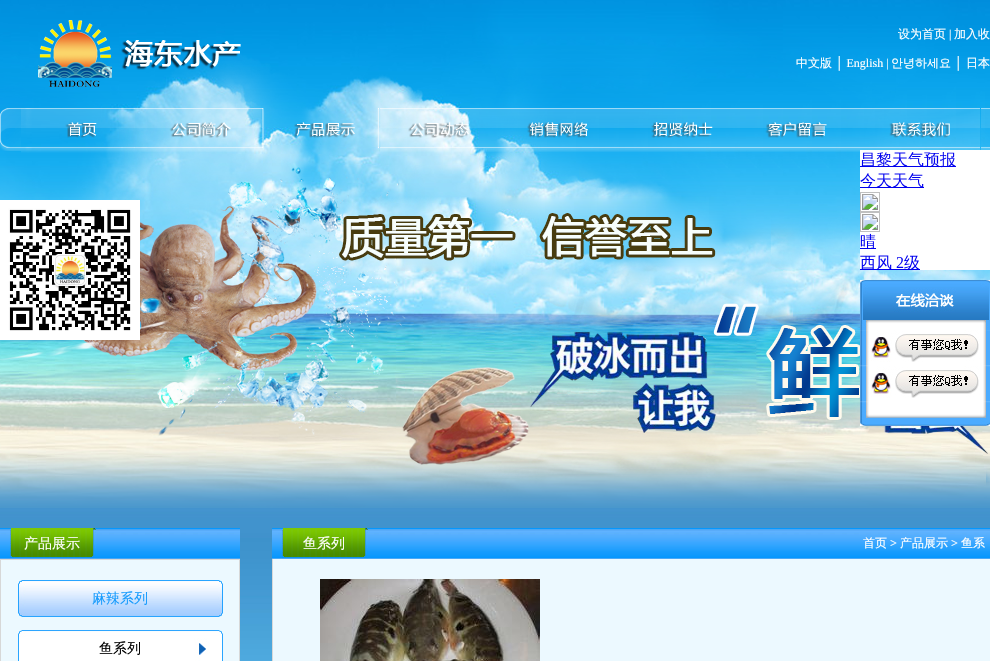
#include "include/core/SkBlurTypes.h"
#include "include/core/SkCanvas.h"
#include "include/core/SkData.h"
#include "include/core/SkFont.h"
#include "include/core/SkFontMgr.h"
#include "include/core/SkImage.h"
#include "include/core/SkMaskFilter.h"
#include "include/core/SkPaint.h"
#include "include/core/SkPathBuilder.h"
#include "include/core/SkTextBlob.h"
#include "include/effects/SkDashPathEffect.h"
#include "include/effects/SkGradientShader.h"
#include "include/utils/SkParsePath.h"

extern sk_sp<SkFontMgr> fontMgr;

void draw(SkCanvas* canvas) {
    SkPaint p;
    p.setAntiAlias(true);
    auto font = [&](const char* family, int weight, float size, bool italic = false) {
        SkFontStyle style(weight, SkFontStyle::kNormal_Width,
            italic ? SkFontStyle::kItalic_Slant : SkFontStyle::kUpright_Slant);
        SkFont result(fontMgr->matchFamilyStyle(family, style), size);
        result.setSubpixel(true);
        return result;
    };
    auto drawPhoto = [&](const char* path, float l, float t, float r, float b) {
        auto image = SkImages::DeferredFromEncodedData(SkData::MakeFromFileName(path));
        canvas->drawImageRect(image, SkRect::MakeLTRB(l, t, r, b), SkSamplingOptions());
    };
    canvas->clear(0xFFFFFFFF);
    drawPhoto("media/1.png", 0, 448, 990, 661);
    drawPhoto("media/2.png", 0, 0, 990, 508);
    drawPhoto("media/3.png", 38, 20, 241, 87);
    auto font1 = font("WenQuanYi Zen Hei", 500, 12);
    p.setColor(0xFFFFFFFF);
    canvas->drawString("设为首页", 898, 38, font1, p);
    auto font2 = font("Liberation Serif", 400, 12);
    canvas->drawString("|", 949, 38, font2, p);
    canvas->drawString("加入收", 954, 38, font1, p);
    canvas->drawString("中文版", 796, 67, font1, p);
    canvas->drawString("│ English |", 835, 67, font2, p);
    canvas->drawString("안녕하세요", 891, 67, font1, p);
    canvas->drawString("│", 954, 67, font2, p);
    canvas->drawString("日本", 966, 67, font1, p);
    drawPhoto("media/4.png", 0, 108, 21, 151);
    drawPhoto("media/5.png", 21, 108, 141, 153);
    drawPhoto("media/6.png", 141, 108, 261, 152);
    drawPhoto("media/7.png", 261, 108, 381, 152);
    drawPhoto("media/8.png", 381, 108, 501, 152);
    drawPhoto("media/9.png", 501, 108, 621, 152);
    drawPhoto("media/10.png", 621, 108, 741, 152);
    drawPhoto("media/11.png", 741, 108, 861, 152);
    drawPhoto("media/12.png", 861, 108, 980, 150);
    drawPhoto("media/13.png", 981, 108, 990, 150);
    drawPhoto("media/14.png", 0, 528, 240, 559);
    drawPhoto("media/15.png", 10, 528, 14, 559);
    drawPhoto("media/16.png", 14, 528, 90, 559);
    auto font3 = font("WenQuanYi Zen Hei", 500, 14);
    canvas->drawString("产品展示", 24, 548, font3, p);
    drawPhoto("media/17.png", 90, 528, 96, 559);
    p.setColor(0xFFECF9FF);
    canvas->drawRect(SkRect::MakeLTRB(0.5f, 559.5f, 239.5f, 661.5f), p);
    p.setStyle(SkPaint::kStroke_Style);
    p.setStrokeWidth(1);
    p.setColor(0xFFD7D8D8);
    canvas->drawRect(SkRect::MakeLTRB(0.5f, 559.5f, 239.5f, 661.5f), p);
    drawPhoto("media/18.png", 18, 580, 223, 617);
    p.setStyle(SkPaint::kFill_Style);
    p.setColor(0xFF169BFD);
    canvas->drawString("麻辣系列", 92, 603, font3, p);
    drawPhoto("media/19.png", 18, 630, 223, 661);
    p.setColor(0xFF000000);
    canvas->drawString("鱼系列", 99, 653, font3, p);
    p.setColor(0xFFECF9FF);
    canvas->drawRect(SkRect::MakeLTRB(272, 529, 990, 661), p);
    drawPhoto("media/20.png", 272, 528, 990, 559);
    drawPhoto("media/21.png", 282, 528, 286, 559);
    drawPhoto("media/22.png", 286, 528, 362, 559);
    p.setColor(0xFFFFFFFF);
    canvas->drawString("鱼系列", 303, 548, font3, p);
    drawPhoto("media/17.png", 362, 528, 368, 559);
    canvas->drawString("首页", 863, 547, font1, p);
    canvas->drawString(">", 890, 547, font2, p);
    canvas->drawString("产品展示", 900, 547, font1, p);
    canvas->drawString(">", 951, 547, font2, p);
    canvas->drawString("鱼系", 961, 547, font1, p);
    p.setColor(0xFFD8D8D8);
    canvas->drawRect(SkRect::MakeLTRB(272, 559, 273, 661), p);
    drawPhoto("media/23.png", 320, 579, 540, 661);
    drawPhoto("media/24.png", 0, 200, 140, 340);
    p.setColor(0xFFFFFFFF);
    canvas->drawRect(SkRect::MakeLTRB(860, 150, 990, 270), p);
    drawPhoto("media/25.png", 860, 152, 956, 270);
    drawPhoto("media/26.png", 860, 280, 990, 330);
    drawPhoto("media/27.png", 860, 330, 990, 366);
    drawPhoto("media/27.png", 860, 366, 990, 402);
    drawPhoto("media/28.png", 860, 402, 990, 426);
}
